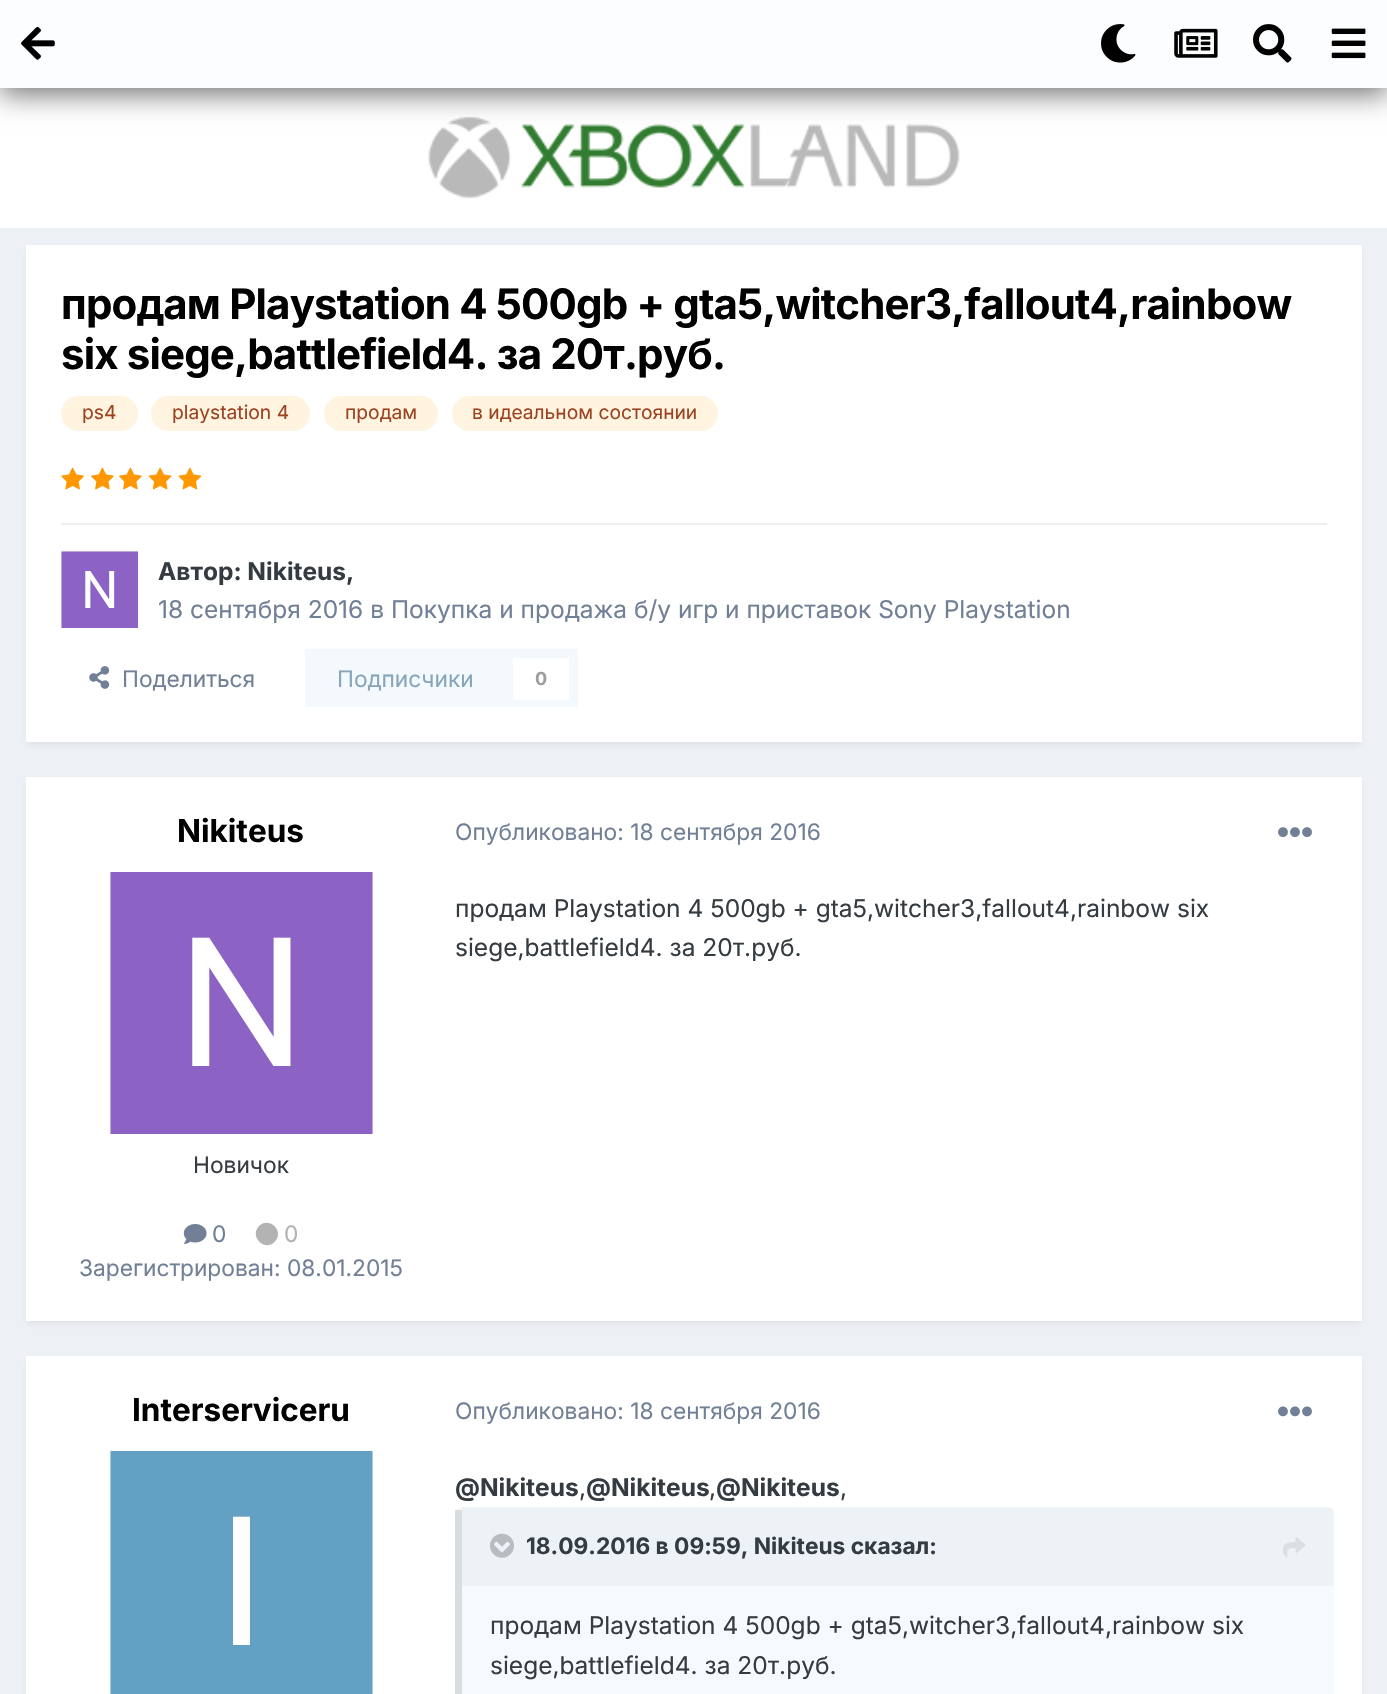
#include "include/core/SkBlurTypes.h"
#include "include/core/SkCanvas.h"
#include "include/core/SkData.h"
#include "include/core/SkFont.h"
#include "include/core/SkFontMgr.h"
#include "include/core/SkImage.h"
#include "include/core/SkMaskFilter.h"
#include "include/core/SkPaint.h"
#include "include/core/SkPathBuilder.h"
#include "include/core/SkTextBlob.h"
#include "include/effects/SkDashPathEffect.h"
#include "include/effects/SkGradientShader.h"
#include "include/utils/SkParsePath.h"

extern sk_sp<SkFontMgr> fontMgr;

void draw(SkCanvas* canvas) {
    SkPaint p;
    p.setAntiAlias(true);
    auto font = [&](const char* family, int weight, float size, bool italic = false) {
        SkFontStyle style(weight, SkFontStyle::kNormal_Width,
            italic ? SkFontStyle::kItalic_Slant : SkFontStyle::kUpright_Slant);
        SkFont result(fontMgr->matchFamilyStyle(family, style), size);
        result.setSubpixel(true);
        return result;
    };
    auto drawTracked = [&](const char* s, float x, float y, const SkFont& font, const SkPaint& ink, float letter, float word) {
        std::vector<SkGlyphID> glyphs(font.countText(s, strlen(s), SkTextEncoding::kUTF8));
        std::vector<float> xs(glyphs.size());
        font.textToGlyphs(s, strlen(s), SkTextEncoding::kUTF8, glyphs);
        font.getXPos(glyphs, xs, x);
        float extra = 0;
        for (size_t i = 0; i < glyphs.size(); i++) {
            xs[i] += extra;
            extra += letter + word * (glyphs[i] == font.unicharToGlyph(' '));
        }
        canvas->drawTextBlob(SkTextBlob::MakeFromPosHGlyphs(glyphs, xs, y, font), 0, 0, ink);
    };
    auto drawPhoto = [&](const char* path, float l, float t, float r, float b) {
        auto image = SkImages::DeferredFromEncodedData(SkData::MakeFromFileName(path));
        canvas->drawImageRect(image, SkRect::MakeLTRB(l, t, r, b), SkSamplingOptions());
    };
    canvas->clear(0xFFEDF0F4);
    p.setColor(0xFFFFFFFF);
    canvas->drawRect(SkRect::MakeLTRB(0, 88, 1387, 228), p);
    canvas->save();
    canvas->clipPath(SkPathBuilder(SkPathFillType::kEvenOdd).moveTo(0, 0).lineTo(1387, 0).lineTo(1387, 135).lineTo(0, 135).close().moveTo(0, 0).lineTo(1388, 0).lineTo(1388, 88).lineTo(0, 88).close().detach(), true);
    p.setColor(0x87000000);
    p.setMaskFilter(SkMaskFilter::MakeBlur(kNormal_SkBlurStyle, 13));
    canvas->drawRect(SkRect::MakeLTRB(0, 7, 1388, 95), p);
    p.setMaskFilter(nullptr);
    canvas->restore();
    p.setColor(0xD6FFFFFF);
    canvas->drawRect(SkRect::MakeLTRB(0, 0, 1387, 88), p);
    drawPhoto("media/1.png", 21, 26, 55, 60);
    drawPhoto("media/2.png", 1101, 24, 1136, 63);
    drawPhoto("media/3.png", 1174, 28, 1218, 58);
    drawPhoto("media/4.png", 1253, 24, 1292, 63);
    drawPhoto("media/5.png", 1331, 28, 1366, 59);
    drawPhoto("media/6.png", 428, 116, 960, 199);
    p.setColor(0x1A3A3636);
    p.setMaskFilter(SkMaskFilter::MakeBlur(kNormal_SkBlurStyle, 3.5f));
    canvas->drawRect(SkRect::MakeLTRB(28, 250, 1360, 744), p);
    p.setMaskFilter(nullptr);
    p.setColor(0xFFFFFFFF);
    canvas->drawRect(SkRect::MakeLTRB(26, 245, 1362, 742), p);
    auto font1 = font("Inter", 700, 42);
    p.setColor(0xFF000000);
    drawTracked("продам Playstation 4 500gb + gta5,witcher3,fallout4,rainbow", 61, 319, font1, p, -0.85f, 0);
    drawTracked("six siege,battlefield4. за 20т.руб.", 61, 369, font1, p, -0.85f, 0);
    p.setColor(0xFFFFF4DF);
    canvas->drawRoundRect(SkRect::MakeLTRB(61, 396, 138, 431), 17.5f, 17.5f, p);
    auto font2 = font("Inter", 400, 19.25f);
    p.setColor(0xFF9C4221);
    canvas->drawString("ps4", 82, 419, font2, p);
    p.setColor(0xFFFFF4DF);
    canvas->drawRoundRect(SkRect::MakeLTRB(151, 396, 310, 431), 17.5f, 17.5f, p);
    p.setColor(0xFF9C4221);
    canvas->drawString("playstation 4", 172, 419, font2, p);
    p.setColor(0xFFFFF4DF);
    canvas->drawRoundRect(SkRect::MakeLTRB(324, 396, 438, 431), 17.5f, 17.5f, p);
    p.setColor(0xFF9C4221);
    canvas->drawString("продам", 345, 419, font2, p);
    p.setColor(0xFFFFF4DF);
    canvas->drawRoundRect(SkRect::MakeLTRB(452, 396, 718, 431), 17.5f, 17.5f, p);
    p.setColor(0xFF9C4221);
    canvas->drawString("в идеальном состоянии", 472, 419, font2, p);
    drawPhoto("media/7.png", 61, 467, 84, 490);
    drawPhoto("media/8.png", 91, 467, 114, 490);
    drawPhoto("media/8.png", 119, 467, 142, 490);
    drawPhoto("media/9.png", 148, 467, 172, 490);
    drawPhoto("media/10.png", 178, 467, 202, 490);
    p.setColor(0xFFEFEFF0);
    canvas->drawRect(SkRect::MakeLTRB(61, 523, 1327, 525), p);
    drawPhoto("media/11.png", 61, 551, 138, 628);
    auto font3 = font("Inter", 700, 24.5f);
    p.setColor(0xFF353C41);
    canvas->drawString("Автор: Nikiteus,", 158, 580, font3, p);
    auto font4 = font("Inter", 400, 24.5f);
    p.setColor(0xFF718096);
    canvas->drawString("18 сентября 2016 в Покупка и продажа б/у игр и приставок Sony Playstation", 158, 618, font4, p);
    drawPhoto("media/12.png", 89, 666, 110, 689);
    auto font5 = font("Inter", 400, 22.75f);
    canvas->drawString("Поделиться", 122, 687, font5, p);
    p.setColor(0xFFF4F9FD);
    canvas->drawRect(SkRect::MakeLTRB(305, 649, 578, 707), p);
    p.setColor(0xFF87A6BC);
    canvas->drawString("Подписчики", 337, 687, font5, p);
    p.setColor(0xFFFFFFFF);
    canvas->drawRect(SkRect::MakeLTRB(513, 658, 569, 700), p);
    auto font6 = font("Inter", 700, 18);
    p.setColor(0xFF9A9EA0);
    canvas->drawString("0", 535, 685, font6, p);
    p.setColor(0x1A3A3636);
    p.setMaskFilter(SkMaskFilter::MakeBlur(kNormal_SkBlurStyle, 3.5f));
    canvas->drawRect(SkRect::MakeLTRB(28, 782, 1360, 1323), p);
    p.setMaskFilter(nullptr);
    p.setColor(0xFFFFFFFF);
    canvas->drawRect(SkRect::MakeLTRB(26, 777, 1362, 1321), p);
    auto font7 = font("Inter", 700, 31.5f);
    p.setColor(0xFF000000);
    canvas->drawString("Nikiteus", 177, 842, font7, p);
    drawPhoto("media/13.png", 110, 872, 373, 1134);
    p.setColor(0xFF353C41);
    canvas->drawString("Новичок", 193, 1173, font5, p);
    drawPhoto("media/14.png", 183, 1224, 207, 1244);
    p.setColor(0xFF718096);
    canvas->drawString("0", 212, 1242, font5, p);
    p.setColor(0xFFB3B3B3);
    canvas->drawPath(SkPathBuilder().moveTo(259, 1226).cubicTo(269.5f, 1216, 285, 1231.5f, 274.5f, 1242).cubicTo(264.5f, 1252, 249, 1236.5f, 259, 1226).close().detach(), p);
    canvas->drawString("0", 284, 1242, font5, p);
    p.setColor(0xFF718096);
    canvas->drawString("Зарегистрирован: 08.01.2015", 79, 1276, font5, p);
    canvas->drawString("Опубликовано: 18 сентября 2016", 455, 840, font5, p);
    drawPhoto("media/15.png", 1278, 827, 1312, 837);
    p.setColor(0xFF353C41);
    canvas->drawString("продам Playstation 4 500gb + gta5,witcher3,fallout4,rainbow six", 455, 917, font4, p);
    canvas->drawString("siege,battlefield4. за 20т.руб.", 455, 956, font4, p);
    p.setColor(0x1A3A3636);
    p.setMaskFilter(SkMaskFilter::MakeBlur(kNormal_SkBlurStyle, 3.5f));
    canvas->drawRect(SkRect::MakeLTRB(28, 1362, 1360, 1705), p);
    p.setMaskFilter(nullptr);
    p.setColor(0xFFFFFFFF);
    canvas->drawRect(SkRect::MakeLTRB(26, 1356, 1362, 1694), p);
    p.setColor(0xFF000000);
    canvas->drawString("Interserviceru", 132, 1421, font7, p);
    drawPhoto("media/16.png", 110, 1451, 373, 1694);
    p.setColor(0xFF718096);
    canvas->drawString("Опубликовано: 18 сентября 2016", 455, 1419, font5, p);
    drawPhoto("media/17.png", 1278, 1406, 1312, 1417);
    p.setColor(0xFF353C41);
    canvas->drawString("@Nikiteus", 455, 1496, font3, p);
    canvas->drawString(",", 579, 1496, font4, p);
    canvas->drawString("@Nikiteus", 586, 1496, font3, p);
    canvas->drawString(",", 709, 1496, font4, p);
    canvas->drawString("@Nikiteus", 716, 1496, font3, p);
    canvas->drawString(",", 840, 1496, font4, p);
    p.setColor(0xFFF7FAFC);
    canvas->drawRoundRect(SkRect::MakeLTRB(455, 1507, 1334, 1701), 7, 7, p);
    p.setColor(0x263A3636);
    canvas->drawRect(SkRect::MakeLTRB(455, 1510, 462, 1694), p);
    p.setColor(0xFFEDF2F7);
    canvas->drawPath(SkPathBuilder().moveTo(462, 1507).lineTo(1327, 1507).cubicTo(1331, 1507, 1334, 1510, 1334, 1514).lineTo(1334, 1586).lineTo(462, 1586).close().detach(), p);
    drawPhoto("media/18.png", 490, 1533, 514, 1558);
    auto font8 = font("Inter", 700, 22.75f);
    p.setColor(0xFF353C41);
    canvas->drawString("18.09.2016 в 09:59, Nikiteus сказал:", 526, 1554, font8, p);
    drawPhoto("media/19.png", 1283, 1537, 1306, 1557);
    canvas->drawString("продам Playstation 4 500gb + gta5,witcher3,fallout4,rainbow six", 490, 1634, font4, p);
    canvas->drawString("siege,battlefield4. за 20т.руб.", 490, 1674, font4, p);
}
